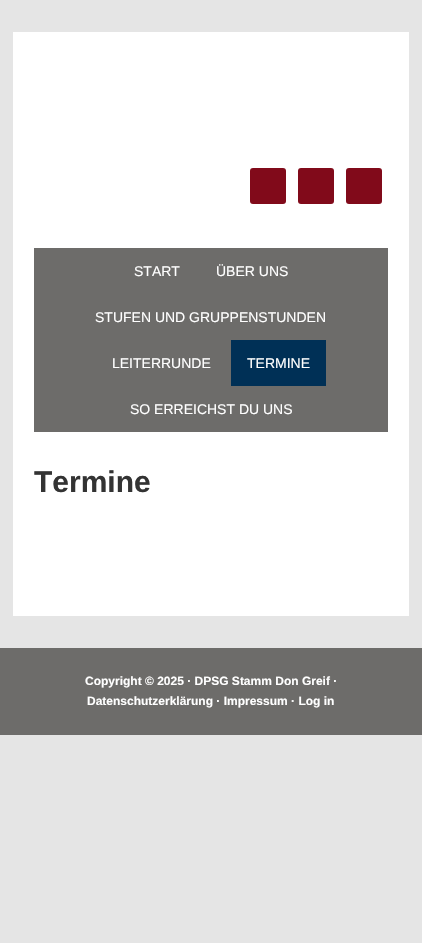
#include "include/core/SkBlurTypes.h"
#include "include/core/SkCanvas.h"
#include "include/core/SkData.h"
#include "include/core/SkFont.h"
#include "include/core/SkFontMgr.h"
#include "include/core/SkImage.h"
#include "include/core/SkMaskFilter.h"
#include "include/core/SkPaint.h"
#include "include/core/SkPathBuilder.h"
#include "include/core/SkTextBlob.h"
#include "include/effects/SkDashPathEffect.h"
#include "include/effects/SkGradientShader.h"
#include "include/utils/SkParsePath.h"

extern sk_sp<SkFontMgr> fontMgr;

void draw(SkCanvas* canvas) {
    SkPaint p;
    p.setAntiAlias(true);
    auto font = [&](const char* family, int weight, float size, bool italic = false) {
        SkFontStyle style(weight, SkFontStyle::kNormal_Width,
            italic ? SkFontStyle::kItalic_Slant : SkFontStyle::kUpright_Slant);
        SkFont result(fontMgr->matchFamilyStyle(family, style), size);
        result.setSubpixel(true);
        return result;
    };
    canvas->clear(0xFFE5E5E5);
    p.setColor(0xFFFFFFFF);
    canvas->drawRect(SkRect::MakeLTRB(13, 32, 409, 616), p);
    p.setColor(0xFF810A1A);
    canvas->drawRoundRect(SkRect::MakeLTRB(250, 168, 286, 204), 3, 3, p);
    canvas->drawRoundRect(SkRect::MakeLTRB(298, 168, 334, 204), 3, 3, p);
    canvas->drawRoundRect(SkRect::MakeLTRB(346, 168, 382, 204), 3, 3, p);
    p.setColor(0xFF6D6C6A);
    canvas->drawRect(SkRect::MakeLTRB(34, 248, 388, 432), p);
    auto font1 = font("Liberation Sans", 400, 14);
    p.setColor(0xFFFFFFFF);
    {
        const struct { const char* s; float x, y; } items[] = {
            {"START", 134, 276},
            {"ÜBER UNS", 216, 276},
            {"STUFEN UND GRUPPENSTUNDEN", 95, 322},
            {"LEITERRUNDE", 112, 368},
        };
        for (auto [s, x, y] : items) {
            canvas->drawString(s, x, y, font1, p);
        }
    }
    p.setColor(0xFF003056);
    canvas->drawRect(SkRect::MakeLTRB(231, 340, 326, 386), p);
    p.setColor(0xFFFFFFFF);
    canvas->drawString("TERMINE", 247, 368, font1, p);
    canvas->drawString("SO ERREICHST DU UNS", 130, 414, font1, p);
    auto font2 = font("Liberation Sans", 700, 30);
    p.setColor(0xFF333333);
    canvas->drawString("Termine", 34, 492, font2, p);
    p.setColor(0xFF6D6C6A);
    canvas->drawRect(SkRect::MakeLTRB(0, 648, 422, 735), p);
    auto font3 = font("Liberation Sans", 700, 12);
    p.setColor(0xFFFFFFFF);
    canvas->drawString("Copyright © 2025 · DPSG Stamm Don Greif ·", 85, 685, font3, p);
    canvas->drawString("Datenschutzerklärung · Impressum · Log in", 87, 705, font3, p);
}
